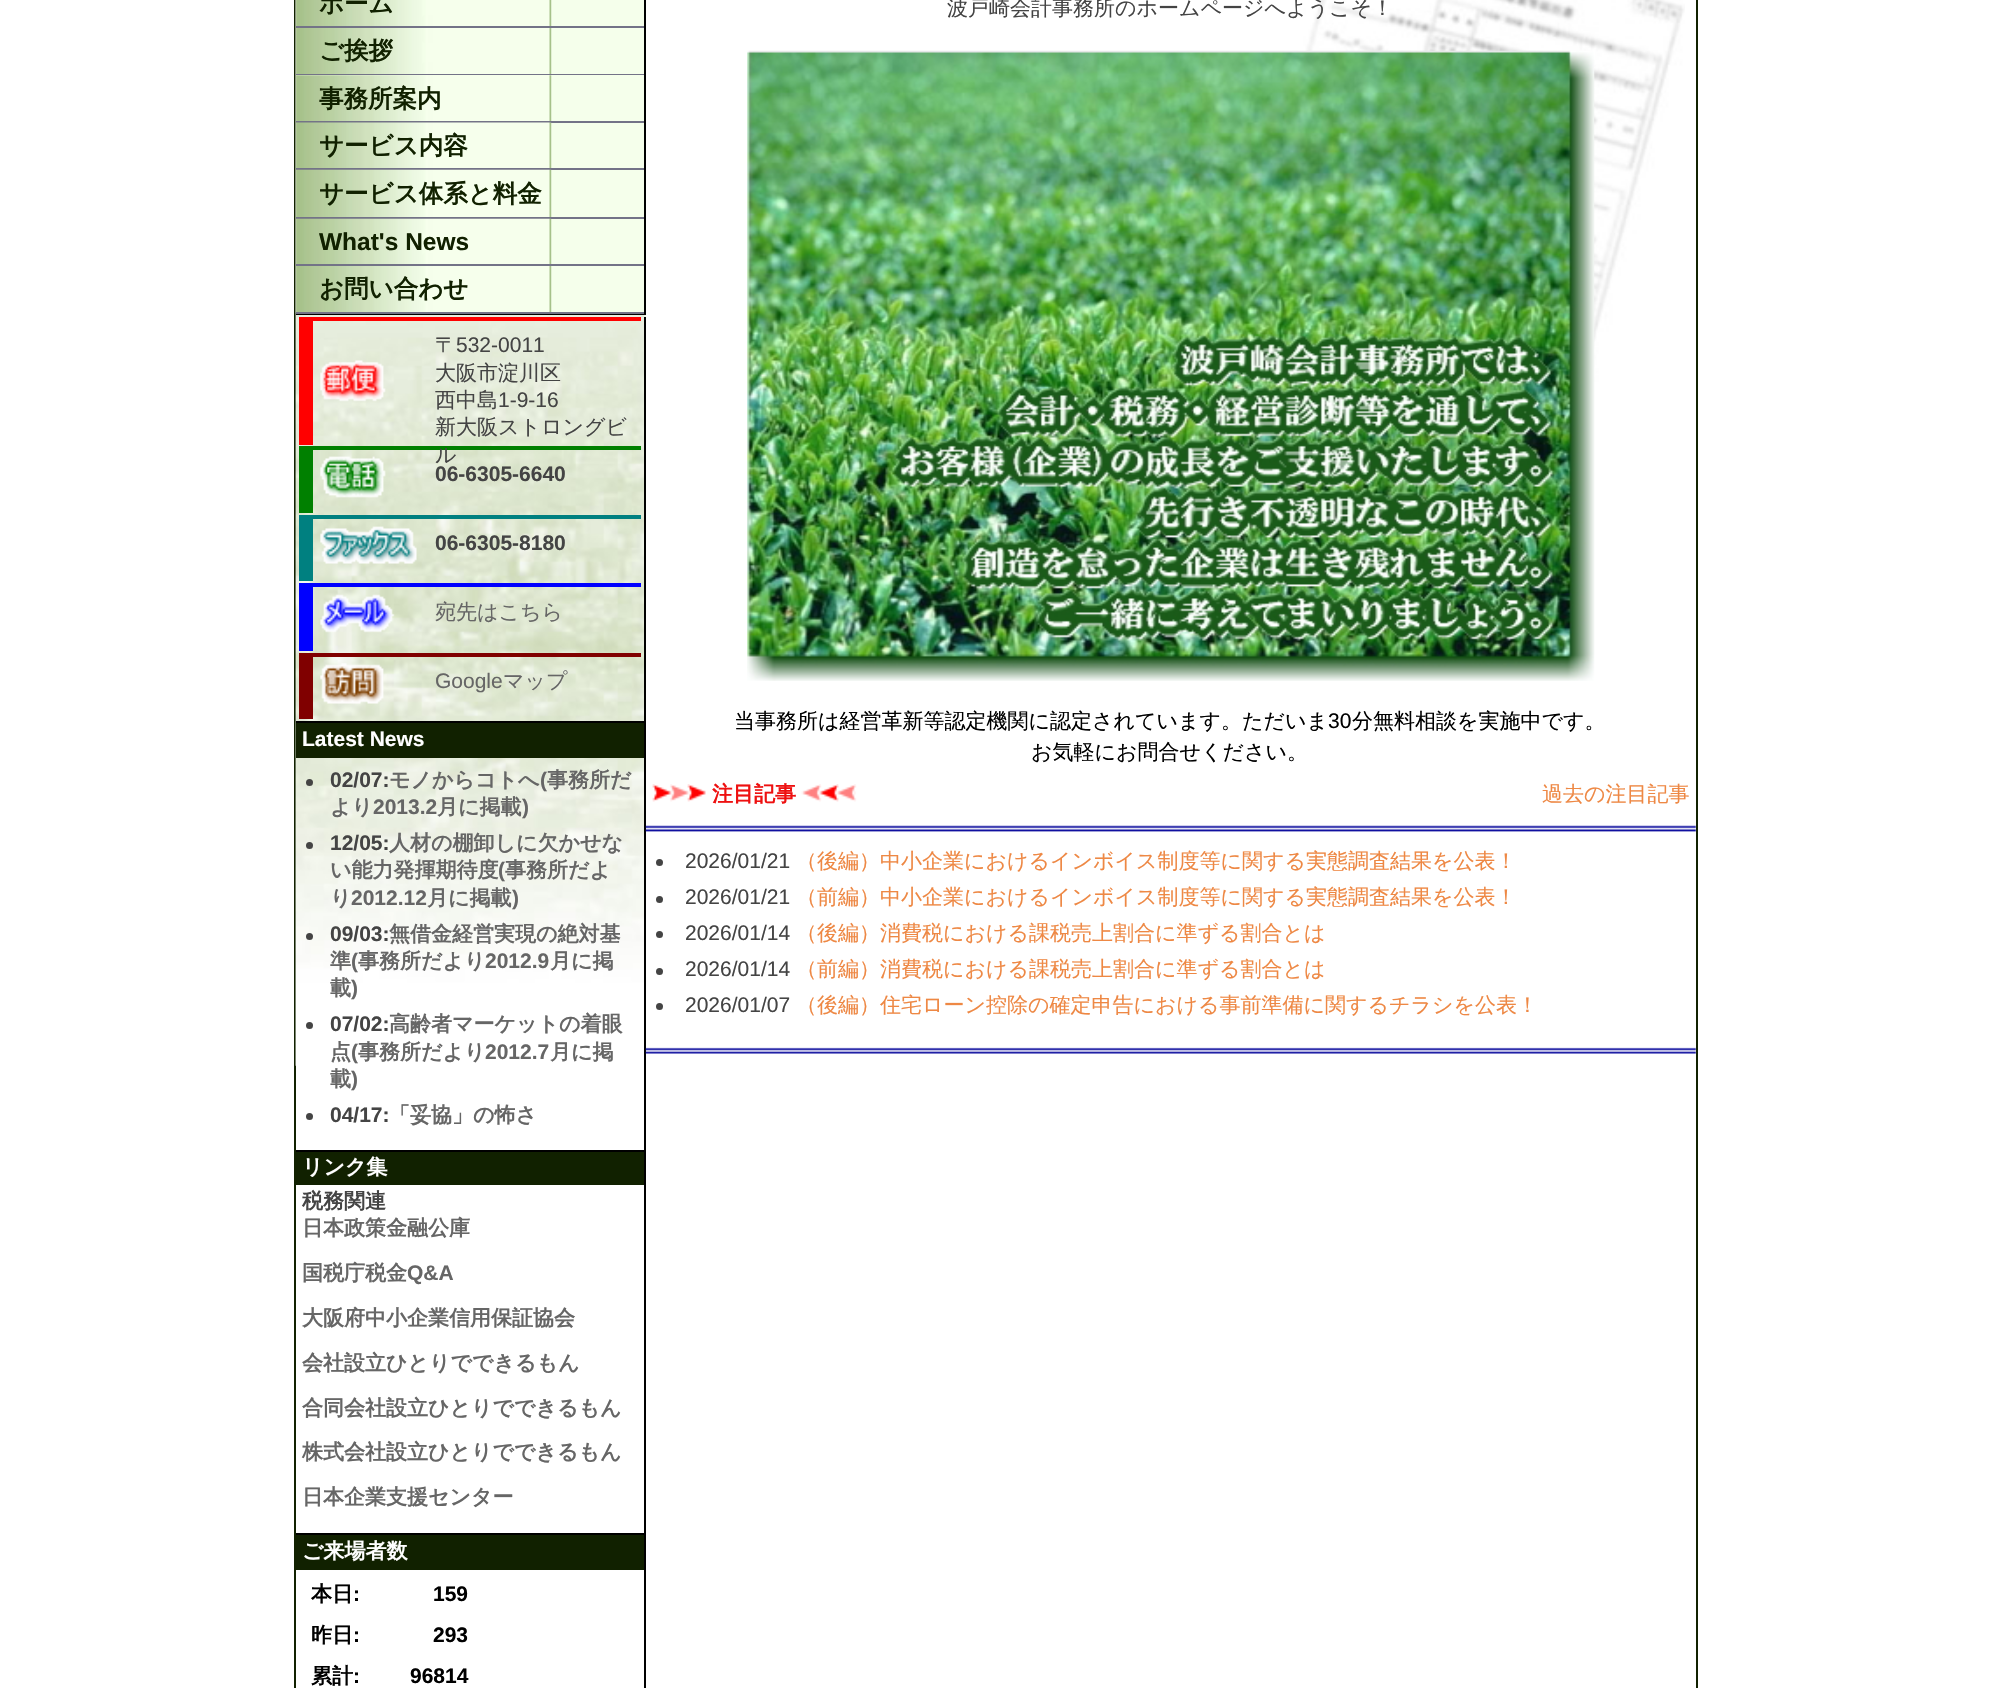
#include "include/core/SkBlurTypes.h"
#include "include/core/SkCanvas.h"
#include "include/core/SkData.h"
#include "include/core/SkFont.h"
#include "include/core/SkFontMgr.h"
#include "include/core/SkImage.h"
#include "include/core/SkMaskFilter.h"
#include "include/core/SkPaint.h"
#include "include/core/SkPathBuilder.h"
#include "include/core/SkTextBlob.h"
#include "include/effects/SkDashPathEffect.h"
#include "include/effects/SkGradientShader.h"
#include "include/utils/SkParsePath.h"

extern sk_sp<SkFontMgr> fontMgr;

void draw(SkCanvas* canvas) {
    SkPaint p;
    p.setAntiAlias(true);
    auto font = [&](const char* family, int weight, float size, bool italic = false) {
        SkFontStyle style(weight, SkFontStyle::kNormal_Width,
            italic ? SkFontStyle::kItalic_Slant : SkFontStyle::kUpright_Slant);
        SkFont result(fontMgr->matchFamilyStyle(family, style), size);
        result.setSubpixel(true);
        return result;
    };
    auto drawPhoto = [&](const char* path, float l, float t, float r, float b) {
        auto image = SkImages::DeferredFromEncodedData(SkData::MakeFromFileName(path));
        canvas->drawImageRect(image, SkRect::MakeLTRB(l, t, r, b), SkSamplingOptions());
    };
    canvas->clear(0xFFFFFFFF);
    p.setStyle(SkPaint::kStroke_Style);
    p.setStrokeWidth(2);
    p.setColor(0xFF112100);
    canvas->drawRect(SkRect::MakeLTRB(295, -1, 1697, 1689), p);
    drawPhoto("media/1.png", 295, 0, 648, 1066);
    p.setStyle(SkPaint::kFill_Style);
    p.setColor(0xFFFFFFFF);
    canvas->drawRect(SkRect::MakeLTRB(296, 315, 646, 977), p);
    drawPhoto("media/2.png", 295, 0, 646, 1066);
    {
        const struct { float l, t, r, b; SkColor color; } items[] = {
            {644, 0, 646, 315, 0xFF000000},
            {296, 313, 646, 315, 0xFF000000},
            {551, 0, 644, 26, 0xFFF5FFEB},
        };
        for (auto [l, t, r, b, color] : items) {
            p.setColor(color);
            canvas->drawRect(SkRect::MakeLTRB(l, t, r, b), p);
        }
    }
    drawPhoto("media/3.png", 295, 0, 552, 28);
    p.setColor(0xFF737387);
    canvas->drawRect(SkRect::MakeLTRB(296, 26, 644, 28), p);
    auto font1 = font("WenQuanYi Zen Hei", 700, 24.5f);
    p.setColor(0xFF112100);
    canvas->drawString("ホーム", 319, 12, font1, p);
    p.setColor(0xFFF5FFEB);
    canvas->drawRect(SkRect::MakeLTRB(551, 28, 644, 74), p);
    drawPhoto("media/4.png", 295, 28, 552, 76);
    p.setColor(0xFF737387);
    canvas->drawRect(SkRect::MakeLTRB(296, 74, 644, 75), p);
    p.setColor(0xFF112100);
    canvas->drawString("ご挨拶", 319, 59, font1, p);
    p.setColor(0xFFF5FFEB);
    canvas->drawRect(SkRect::MakeLTRB(296, 75, 644, 121), p);
    drawPhoto("media/5.png", 295, 75, 552, 123);
    p.setColor(0xFF737387);
    canvas->drawRect(SkRect::MakeLTRB(296, 121, 644, 123), p);
    p.setColor(0xFF112100);
    canvas->drawString("事務所案内", 319, 107, font1, p);
    p.setColor(0xFFF5FFEB);
    canvas->drawRect(SkRect::MakeLTRB(551, 123, 644, 168), p);
    drawPhoto("media/6.png", 295, 122, 552, 170);
    p.setColor(0xFF737387);
    canvas->drawRect(SkRect::MakeLTRB(296, 168, 644, 170), p);
    p.setColor(0xFF112100);
    canvas->drawString("サービス内容", 319, 154, font1, p);
    p.setColor(0xFFF5FFEB);
    canvas->drawRect(SkRect::MakeLTRB(551, 170, 644, 217), p);
    drawPhoto("media/7.png", 295, 169, 552, 219);
    p.setColor(0xFF737387);
    canvas->drawRect(SkRect::MakeLTRB(296, 217, 644, 219), p);
    p.setColor(0xFF112100);
    canvas->drawString("サービス体系と料金", 319, 202, font1, p);
    p.setColor(0xFFF5FFEB);
    canvas->drawRect(SkRect::MakeLTRB(551, 219, 644, 264), p);
    drawPhoto("media/8.png", 295, 218, 552, 266);
    p.setColor(0xFF737387);
    canvas->drawRect(SkRect::MakeLTRB(296, 264, 644, 266), p);
    auto font2 = font("Liberation Sans", 700, 24.5f);
    p.setColor(0xFF112100);
    canvas->drawString("What's News", 319, 250, font2, p);
    p.setColor(0xFFF5FFEB);
    canvas->drawRect(SkRect::MakeLTRB(551, 266, 644, 312), p);
    drawPhoto("media/9.png", 295, 266, 552, 314);
    p.setColor(0xFF737387);
    canvas->drawRect(SkRect::MakeLTRB(296, 312, 644, 314), p);
    p.setColor(0xFF112100);
    canvas->drawString("お問い合わせ", 319, 297, font1, p);
    {
        const struct { float l, t, r, b; SkColor color; } items[] = {
            {644, 317, 646, 1688, 0xFF000000},
            {296, 721, 646, 723, 0xFF000000},
            {313, 317, 641, 321, 0xFFFF0000},
            {299, 317, 313, 445, 0xFFFF0000},
        };
        for (auto [l, t, r, b, color] : items) {
            p.setColor(color);
            canvas->drawRect(SkRect::MakeLTRB(l, t, r, b), p);
        }
    }
    drawPhoto("media/10.png", 320, 360, 386, 402);
    auto font3 = font("WenQuanYi Zen Hei", 500, 21);
    p.setColor(0xFF444444);
    canvas->drawString("〒", 435, 352, font3, p);
    auto font4 = font("Liberation Sans", 400, 21);
    canvas->drawString("532-0011", 456, 352, font4, p);
    canvas->drawString("大阪市淀川区", 435, 380, font3, p);
    canvas->drawString("西中島", 435, 407, font3, p);
    canvas->drawString("1-9-16", 498, 407, font4, p);
    canvas->drawString("新大阪ストロングビ", 435, 434, font3, p);
    p.setColor(0xFF008000);
    canvas->drawRect(SkRect::MakeLTRB(313, 446, 641, 450), p);
    p.setColor(0xFF444444);
    canvas->drawString("ル", 435, 462, font3, p);
    p.setColor(0xFF008000);
    canvas->drawRect(SkRect::MakeLTRB(299, 446, 313, 513), p);
    drawPhoto("media/11.png", 320, 456, 386, 498);
    auto font5 = font("Liberation Sans", 700, 21);
    p.setColor(0xFF444444);
    canvas->drawString("06-6305-6640", 435, 481, font5, p);
    p.setColor(0xFF008080);
    canvas->drawRect(SkRect::MakeLTRB(313, 515, 641, 519), p);
    canvas->drawRect(SkRect::MakeLTRB(299, 515, 313, 581), p);
    drawPhoto("media/12.png", 320, 526, 417, 564);
    p.setColor(0xFF444444);
    canvas->drawString("06-6305-8180", 435, 550, font5, p);
    p.setColor(0xFF0000FF);
    canvas->drawRect(SkRect::MakeLTRB(313, 583, 641, 587), p);
    canvas->drawRect(SkRect::MakeLTRB(299, 583, 313, 651), p);
    drawPhoto("media/13.png", 320, 594, 395, 633);
    p.setColor(0xFF666666);
    canvas->drawString("宛先はこちら", 435, 619, font3, p);
    p.setColor(0xFF800000);
    canvas->drawRect(SkRect::MakeLTRB(313, 653, 641, 657), p);
    canvas->drawRect(SkRect::MakeLTRB(299, 653, 313, 719), p);
    drawPhoto("media/14.png", 320, 663, 384, 704);
    p.setColor(0xFF666666);
    canvas->drawString("Google", 435, 688, font4, p);
    canvas->drawString("マップ", 503, 688, font3, p);
    p.setColor(0xFF000000);
    canvas->drawRect(SkRect::MakeLTRB(296, 1150, 646, 1152), p);
    p.setColor(0xFF112100);
    canvas->drawRect(SkRect::MakeLTRB(296, 723, 644, 758), p);
    p.setColor(0xFFFFFFFF);
    canvas->drawString("Latest News", 302, 746, font5, p);
    p.setColor(0xFF444444);
    canvas->drawCircle(309.5f, 782.5f, 3.5f, p);
    canvas->drawString("02/07:", 330, 787, font5, p);
    auto font6 = font("WenQuanYi Zen Hei", 700, 21);
    p.setColor(0xFF666666);
    canvas->drawString("モノからコトへ", 389, 787, font6, p);
    canvas->drawString("(", 540, 787, font5, p);
    canvas->drawString("事務所だ", 547, 787, font6, p);
    canvas->drawString("より", 330, 814, font6, p);
    canvas->drawString("2013.2", 373, 814, font5, p);
    canvas->drawString("月に掲載", 437, 814, font6, p);
    canvas->drawString(")", 522, 814, font5, p);
    p.setColor(0xFF444444);
    canvas->drawCircle(309.5f, 845.5f, 3.5f, p);
    canvas->drawString("12/05:", 330, 850, font5, p);
    p.setColor(0xFF666666);
    canvas->drawString("人材の棚卸しに欠かせな", 389, 850, font6, p);
    canvas->drawString("い能力発揮期待度", 330, 877, font6, p);
    canvas->drawString("(", 498, 877, font5, p);
    canvas->drawString("事務所だよ", 505, 877, font6, p);
    canvas->drawString("り", 330, 905, font6, p);
    canvas->drawString("2012.12", 351, 905, font5, p);
    canvas->drawString("月に掲載", 427, 905, font6, p);
    canvas->drawString(")", 512, 905, font5, p);
    p.setColor(0xFF444444);
    canvas->drawCircle(309.5f, 936.5f, 3.5f, p);
    canvas->drawString("09/03:", 330, 941, font5, p);
    p.setColor(0xFF666666);
    canvas->drawString("無借金経営実現の絶対基", 389, 941, font6, p);
    canvas->drawString("準", 330, 968, font6, p);
    canvas->drawString("(", 351, 968, font5, p);
    canvas->drawString("事務所だより", 358, 968, font6, p);
    canvas->drawString("2012.9", 485, 968, font5, p);
    canvas->drawString("月に掲", 550, 968, font6, p);
    canvas->drawString("載", 330, 995, font6, p);
    canvas->drawString(")", 351, 995, font5, p);
    p.setColor(0xFF444444);
    canvas->drawCircle(309.5f, 1025.5f, 3.5f, p);
    canvas->drawString("07/02:", 330, 1031, font5, p);
    p.setColor(0xFF666666);
    canvas->drawString("高齢者マーケットの着眼", 389, 1031, font6, p);
    canvas->drawString("点", 330, 1059, font6, p);
    canvas->drawString("(", 351, 1059, font5, p);
    canvas->drawString("事務所だより", 358, 1059, font6, p);
    canvas->drawString("2012.7", 485, 1059, font5, p);
    canvas->drawString("月に掲", 550, 1059, font6, p);
    canvas->drawString("載", 330, 1086, font6, p);
    canvas->drawString(")", 351, 1086, font5, p);
    p.setColor(0xFF444444);
    canvas->drawCircle(309.5f, 1116.5f, 3.5f, p);
    canvas->drawString("04/17:", 330, 1122, font5, p);
    p.setColor(0xFF666666);
    canvas->drawString("「妥協」の怖さ", 389, 1122, font6, p);
    p.setColor(0xFF000000);
    canvas->drawRect(SkRect::MakeLTRB(296, 1533, 646, 1535), p);
    p.setColor(0xFF112100);
    canvas->drawRect(SkRect::MakeLTRB(296, 1152, 644, 1185), p);
    p.setColor(0xFFFFFFFF);
    canvas->drawString("リンク集", 302, 1174, font6, p);
    p.setColor(0xFF444444);
    canvas->drawString("税務関連", 302, 1208, font6, p);
    p.setColor(0xFF666666);
    canvas->drawString("日本政策金融公庫", 302, 1235, font6, p);
    canvas->drawString("国税庁税金", 302, 1280, font6, p);
    canvas->drawString("Q&A", 407, 1280, font5, p);
    {
        const struct { const char* s; float x, y; } items[] = {
            {"大阪府中小企業信用保証協会", 302, 1325},
            {"会社設立ひとりでできるもん", 302, 1370},
            {"合同会社設立ひとりでできるもん", 302, 1415},
            {"株式会社設立ひとりでできるもん", 302, 1459},
            {"日本企業支援センター", 302, 1504},
        };
        for (auto [s, x, y] : items) {
            canvas->drawString(s, x, y, font6, p);
        }
    }
    p.setColor(0xFF112100);
    canvas->drawRect(SkRect::MakeLTRB(296, 1535, 644, 1570), p);
    p.setColor(0xFFFFFFFF);
    canvas->drawString("ご来場者数", 302, 1558, font6, p);
    p.setColor(0xFF000000);
    canvas->drawString("本日", 311, 1601, font6, p);
    canvas->drawString(":", 353, 1601, font5, p);
    canvas->drawString("159", 433, 1601, font5, p);
    canvas->drawString("昨日", 311, 1642, font6, p);
    canvas->drawString(":", 353, 1642, font5, p);
    canvas->drawString("293", 433, 1642, font5, p);
    canvas->drawString("累計", 311, 1683, font6, p);
    canvas->drawString(":", 353, 1683, font5, p);
    canvas->drawString("96814", 410, 1683, font5, p);
    p.setColor(0xFFFFFFFF);
    canvas->drawRect(SkRect::MakeLTRB(646, 0, 648, 977), p);
    drawPhoto("media/15.png", 1207, 0, 1685, 511);
    p.setColor(0xFF444444);
    canvas->drawString("波戸崎会計事務所のホームページへようこそ！", 947, 15, font3, p);
    drawPhoto("media/16.png", 747, 50, 1595, 681);
    p.setColor(0xFF000000);
    canvas->drawString("当事務所は経営革新等認定機関に認定されています。ただいま", 734, 728, font3, p);
    canvas->drawString("30", 1328, 728, font4, p);
    canvas->drawString("分無料相談を実施中です。", 1352, 728, font3, p);
    canvas->drawString("お気軽にお問合せください。", 1031, 759, font3, p);
    drawPhoto("media/17.png", 652, 784, 706, 802);
    p.setColor(0xFFEE1010);
    canvas->drawString("注目記事", 712, 801, font6, p);
    drawPhoto("media/18.png", 801, 784, 857, 802);
    p.setColor(0xFFEE8844);
    canvas->drawString("過去の注目記事", 1542, 801, font3, p);
    drawPhoto("media/19.png", 645, 825, 1696, 832);
    p.setColor(0xFF444444);
    canvas->drawCircle(659.5f, 862.5f, 3.5f, p);
    canvas->drawString("2026/01/21", 685, 868, font4, p);
    p.setColor(0xFFEE8844);
    canvas->drawString("（後編）中小企業におけるインボイス制度等に関する実態調査結果を公表！", 796, 868, font3, p);
    p.setColor(0xFF444444);
    canvas->drawCircle(659.5f, 899.5f, 3.5f, p);
    canvas->drawString("2026/01/21", 685, 904, font4, p);
    p.setColor(0xFFEE8844);
    canvas->drawString("（前編）中小企業におけるインボイス制度等に関する実態調査結果を公表！", 796, 904, font3, p);
    p.setColor(0xFF444444);
    canvas->drawCircle(659.5f, 934.5f, 3.5f, p);
    canvas->drawString("2026/01/14", 685, 940, font4, p);
    p.setColor(0xFFEE8844);
    canvas->drawString("（後編）消費税における課税売上割合に準ずる割合とは", 796, 940, font3, p);
    p.setColor(0xFF444444);
    canvas->drawCircle(659.5f, 971.5f, 3.5f, p);
    canvas->drawString("2026/01/14", 685, 976, font4, p);
    p.setColor(0xFFEE8844);
    canvas->drawString("（前編）消費税における課税売上割合に準ずる割合とは", 796, 976, font3, p);
    p.setColor(0xFF444444);
    canvas->drawCircle(659.5f, 1006.5f, 3.5f, p);
    canvas->drawString("2026/01/07", 685, 1012, font4, p);
    p.setColor(0xFFEE8844);
    canvas->drawString("（後編）住宅ローン控除の確定申告における事前準備に関するチラシを公表！", 796, 1012, font3, p);
    drawPhoto("media/20.png", 645, 1047, 1696, 1054);
}
